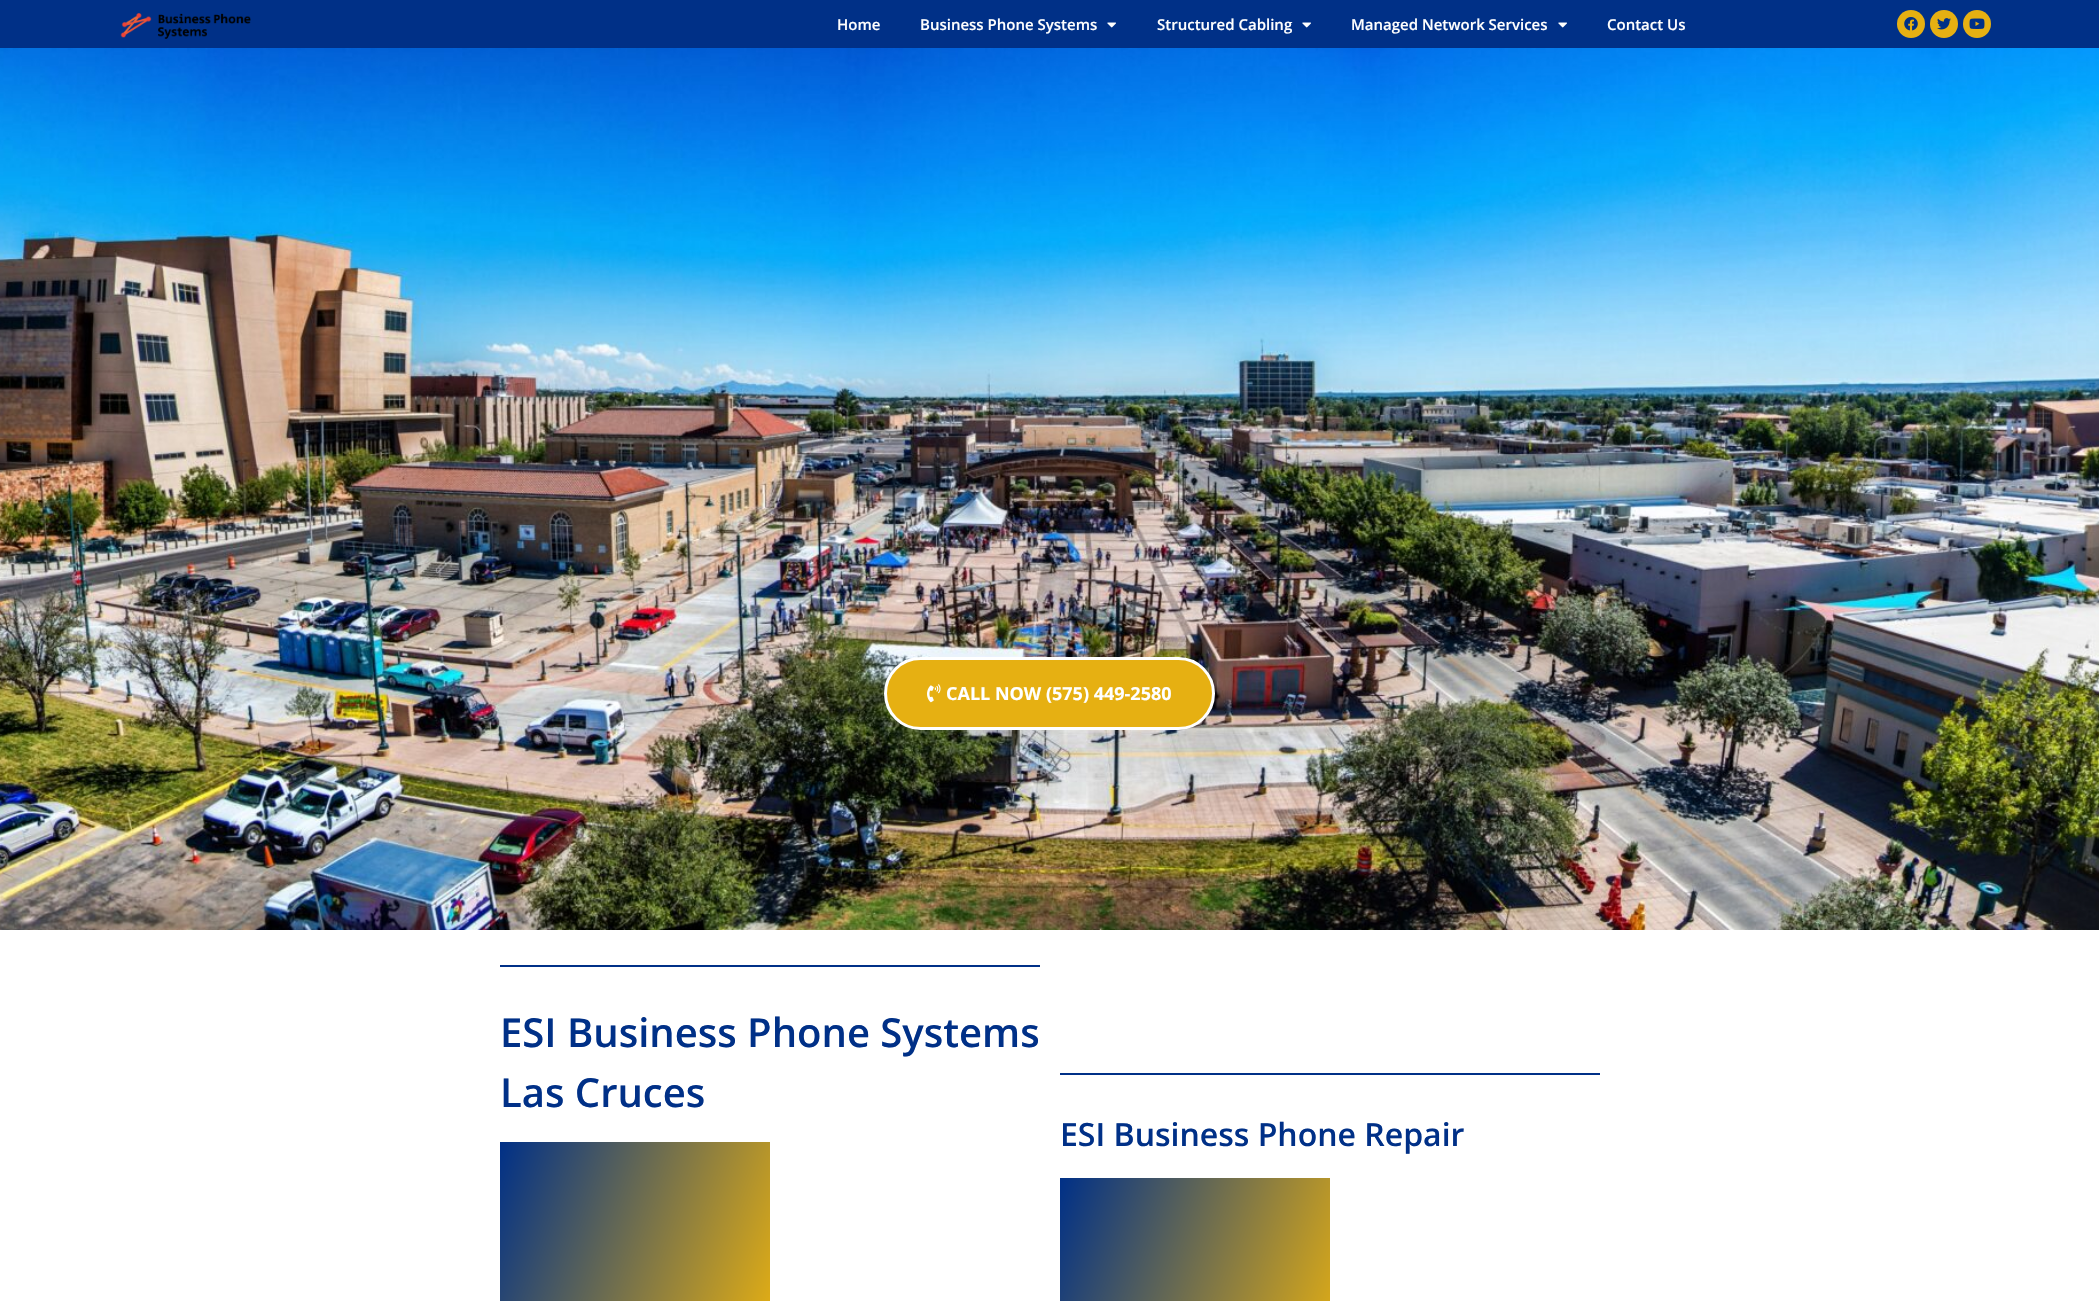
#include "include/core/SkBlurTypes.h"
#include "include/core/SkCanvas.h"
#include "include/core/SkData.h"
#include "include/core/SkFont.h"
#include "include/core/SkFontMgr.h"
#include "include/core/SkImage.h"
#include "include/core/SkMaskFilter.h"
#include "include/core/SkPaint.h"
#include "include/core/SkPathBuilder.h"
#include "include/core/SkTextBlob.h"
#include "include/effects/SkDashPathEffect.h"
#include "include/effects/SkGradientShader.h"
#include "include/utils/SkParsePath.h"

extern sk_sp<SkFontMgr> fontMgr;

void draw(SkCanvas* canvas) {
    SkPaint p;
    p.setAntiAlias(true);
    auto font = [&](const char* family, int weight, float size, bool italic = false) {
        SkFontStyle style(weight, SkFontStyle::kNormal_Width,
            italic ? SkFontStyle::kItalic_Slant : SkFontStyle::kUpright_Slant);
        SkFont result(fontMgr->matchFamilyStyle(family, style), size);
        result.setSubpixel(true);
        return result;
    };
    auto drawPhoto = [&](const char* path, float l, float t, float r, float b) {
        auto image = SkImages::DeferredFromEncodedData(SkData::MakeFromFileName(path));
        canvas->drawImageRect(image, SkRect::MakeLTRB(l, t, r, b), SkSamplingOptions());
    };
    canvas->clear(0xFFFFFFFF);
    p.setColor(0xFF003087);
    canvas->drawRect(SkRect::MakeLTRB(0, 0, 2099, 48), p);
    drawPhoto("media/1.png", 120, 13, 251, 39);
    auto font1 = font("Open Sans", 600, 15);
    p.setColor(0xFFFFFFFF);
    canvas->drawString("Home", 837, 30, font1, p);
    canvas->drawString("Business Phone Systems", 920, 30, font1, p);
    drawPhoto("media/2.png", 1107, 22, 1116, 28);
    canvas->drawString("Structured Cabling", 1157, 30, font1, p);
    drawPhoto("media/2.png", 1302, 22, 1311, 28);
    canvas->drawString("Managed Network Services", 1351, 30, font1, p);
    drawPhoto("media/2.png", 1558, 22, 1567, 28);
    canvas->drawString("Contact Us", 1607, 30, font1, p);
    p.setColor(0xFFE6B012);
    canvas->drawCircle(1911, 24, 14, p);
    drawPhoto("media/3.png", 1904, 17, 1918, 31);
    canvas->drawCircle(1944, 24, 14, p);
    drawPhoto("media/4.png", 1937, 18, 1951, 30);
    canvas->drawCircle(1977, 24, 14, p);
    drawPhoto("media/5.png", 1969, 18, 1985, 29);
    drawPhoto("media/6.png", 0, 48, 2099, 930);
    canvas->drawRoundRect(SkRect::MakeLTRB(885.5f, 658.5f, 1213.5f, 728.5f), 35, 35, p);
    p.setStyle(SkPaint::kStroke_Style);
    p.setStrokeWidth(3);
    p.setColor(0xFFFFFFFF);
    canvas->drawRoundRect(SkRect::MakeLTRB(885.5f, 658.5f, 1213.5f, 728.5f), 35, 35, p);
    drawPhoto("media/7.png", 927, 684, 941, 703);
    auto font2 = font("Open Sans", 700, 18);
    p.setStyle(SkPaint::kFill_Style);
    canvas->drawString("CALL NOW (575) 449-2580", 946, 700, font2, p);
    p.setColor(0xFF003087);
    canvas->drawRect(SkRect::MakeLTRB(500, 965, 1040, 967), p);
    auto font3 = font("Open Sans", 600, 40);
    canvas->drawString("ESI Business Phone Systems", 500, 1047, font3, p);
    canvas->drawString("Las Cruces", 500, 1107, font3, p);
    {
        const SkColor colors[] = {0xFF003087, 0xFFE6B012};
        const float stops[] = {0, 1};
        const SkPoint ends[] = {{484, 1186}, {786, 1297}};
        p.setShader(SkGradientShader::MakeLinear(ends, colors, stops, 2, SkTileMode::kClamp));
        p.setAlpha(255);
    }
    canvas->drawRect(SkRect::MakeLTRB(500, 1142, 770, 1301), p);
    p.setShader(nullptr);
    p.setColor(0xFF003087);
    canvas->drawRect(SkRect::MakeLTRB(1060, 1073, 1600, 1075), p);
    auto font4 = font("Open Sans", 600, 32);
    canvas->drawString("ESI Business Phone Repair", 1060, 1146, font4, p);
    {
        const SkColor colors[] = {0xFF003087, 0xFFE6B012};
        const float stops[] = {0, 1};
        const SkPoint ends[] = {{1044, 1222}, {1346, 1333}};
        p.setShader(SkGradientShader::MakeLinear(ends, colors, stops, 2, SkTileMode::kClamp));
        p.setAlpha(255);
    }
    canvas->drawRect(SkRect::MakeLTRB(1060, 1178, 1330, 1301), p);
}
